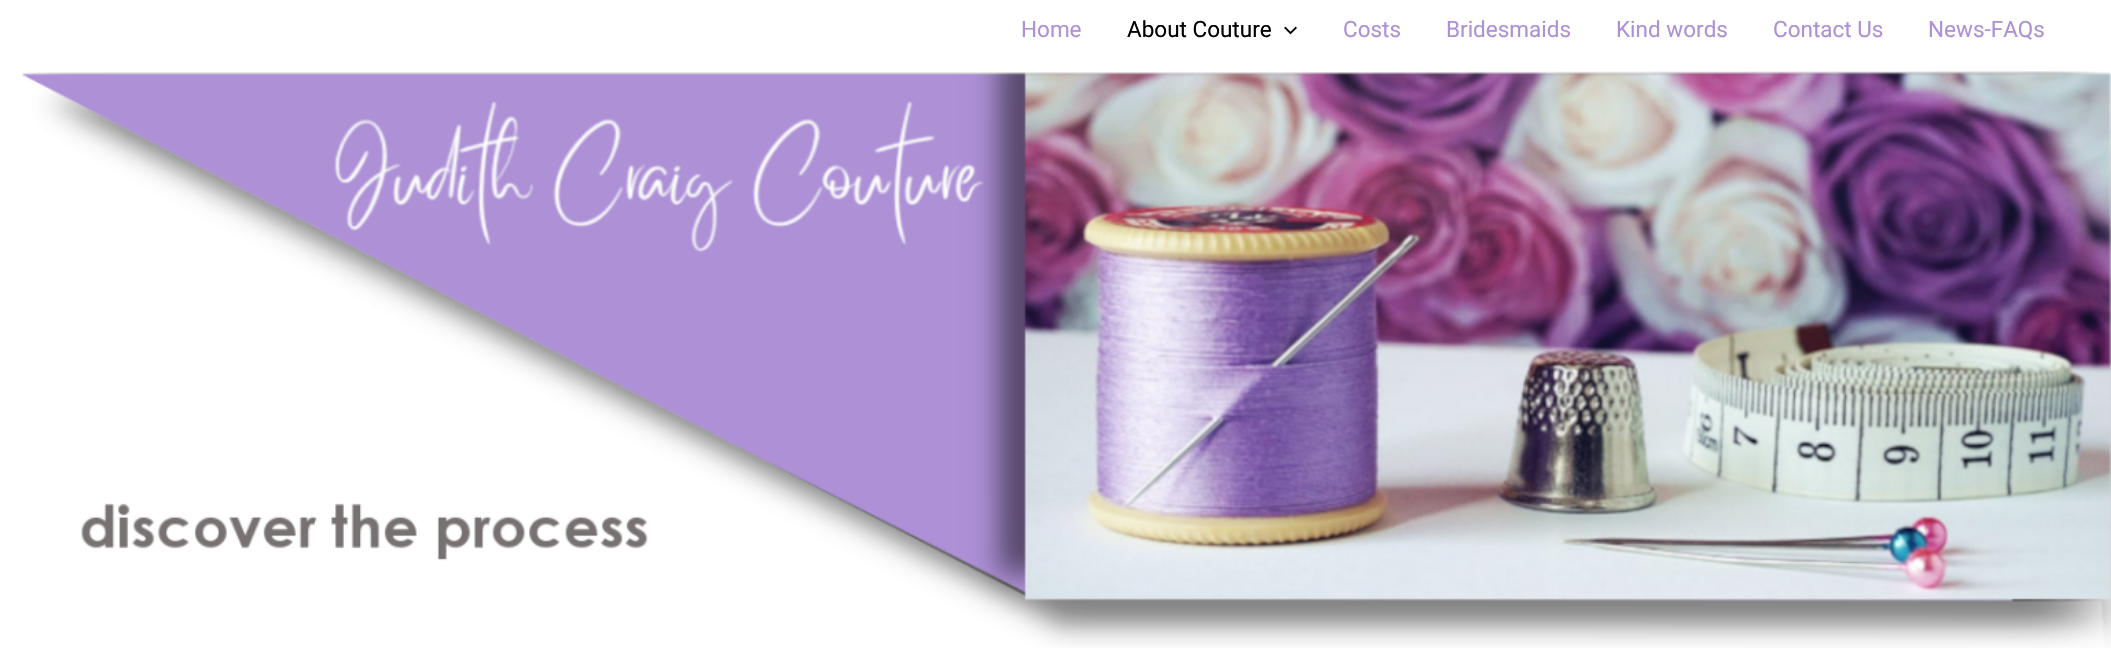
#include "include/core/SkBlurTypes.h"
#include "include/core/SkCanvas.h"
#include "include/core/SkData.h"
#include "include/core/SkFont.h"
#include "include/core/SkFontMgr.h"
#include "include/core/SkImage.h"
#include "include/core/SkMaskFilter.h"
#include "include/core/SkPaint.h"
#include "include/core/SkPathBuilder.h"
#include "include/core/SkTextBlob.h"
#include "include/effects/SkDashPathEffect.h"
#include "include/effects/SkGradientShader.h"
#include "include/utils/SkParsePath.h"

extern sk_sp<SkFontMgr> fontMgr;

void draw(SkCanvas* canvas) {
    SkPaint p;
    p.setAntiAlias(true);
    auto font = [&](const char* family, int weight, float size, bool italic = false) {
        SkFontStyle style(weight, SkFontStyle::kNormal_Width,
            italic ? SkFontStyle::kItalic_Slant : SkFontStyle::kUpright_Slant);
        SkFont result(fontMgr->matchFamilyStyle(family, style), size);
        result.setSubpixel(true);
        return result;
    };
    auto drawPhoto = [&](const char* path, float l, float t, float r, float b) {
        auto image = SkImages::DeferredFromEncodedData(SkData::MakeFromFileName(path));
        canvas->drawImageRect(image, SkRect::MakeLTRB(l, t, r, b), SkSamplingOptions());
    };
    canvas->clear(0xFFFFFFFF);
    auto font1 = font("Roboto", 400, 22.5f);
    p.setColor(0xFFAD90D6);
    canvas->drawString("Home", 1021, 37, font1, p);
    p.setColor(0xFF000000);
    canvas->drawString("About Couture", 1127, 37, font1, p);
    drawPhoto("media/1.png", 1284, 26, 1297, 35);
    p.setColor(0xFFAD90D6);
    {
        const struct { const char* s; float x, y; } items[] = {
            {"Costs", 1343, 37},
            {"Bridesmaids", 1446, 37},
            {"Kind words", 1616, 37},
            {"Contact Us", 1773, 37},
            {"News-FAQs", 1928, 37},
        };
        for (auto [s, x, y] : items) {
            canvas->drawString(s, x, y, font1, p);
        }
    }
    drawPhoto("media/2.png", 22, 71, 2111, 648);
}
